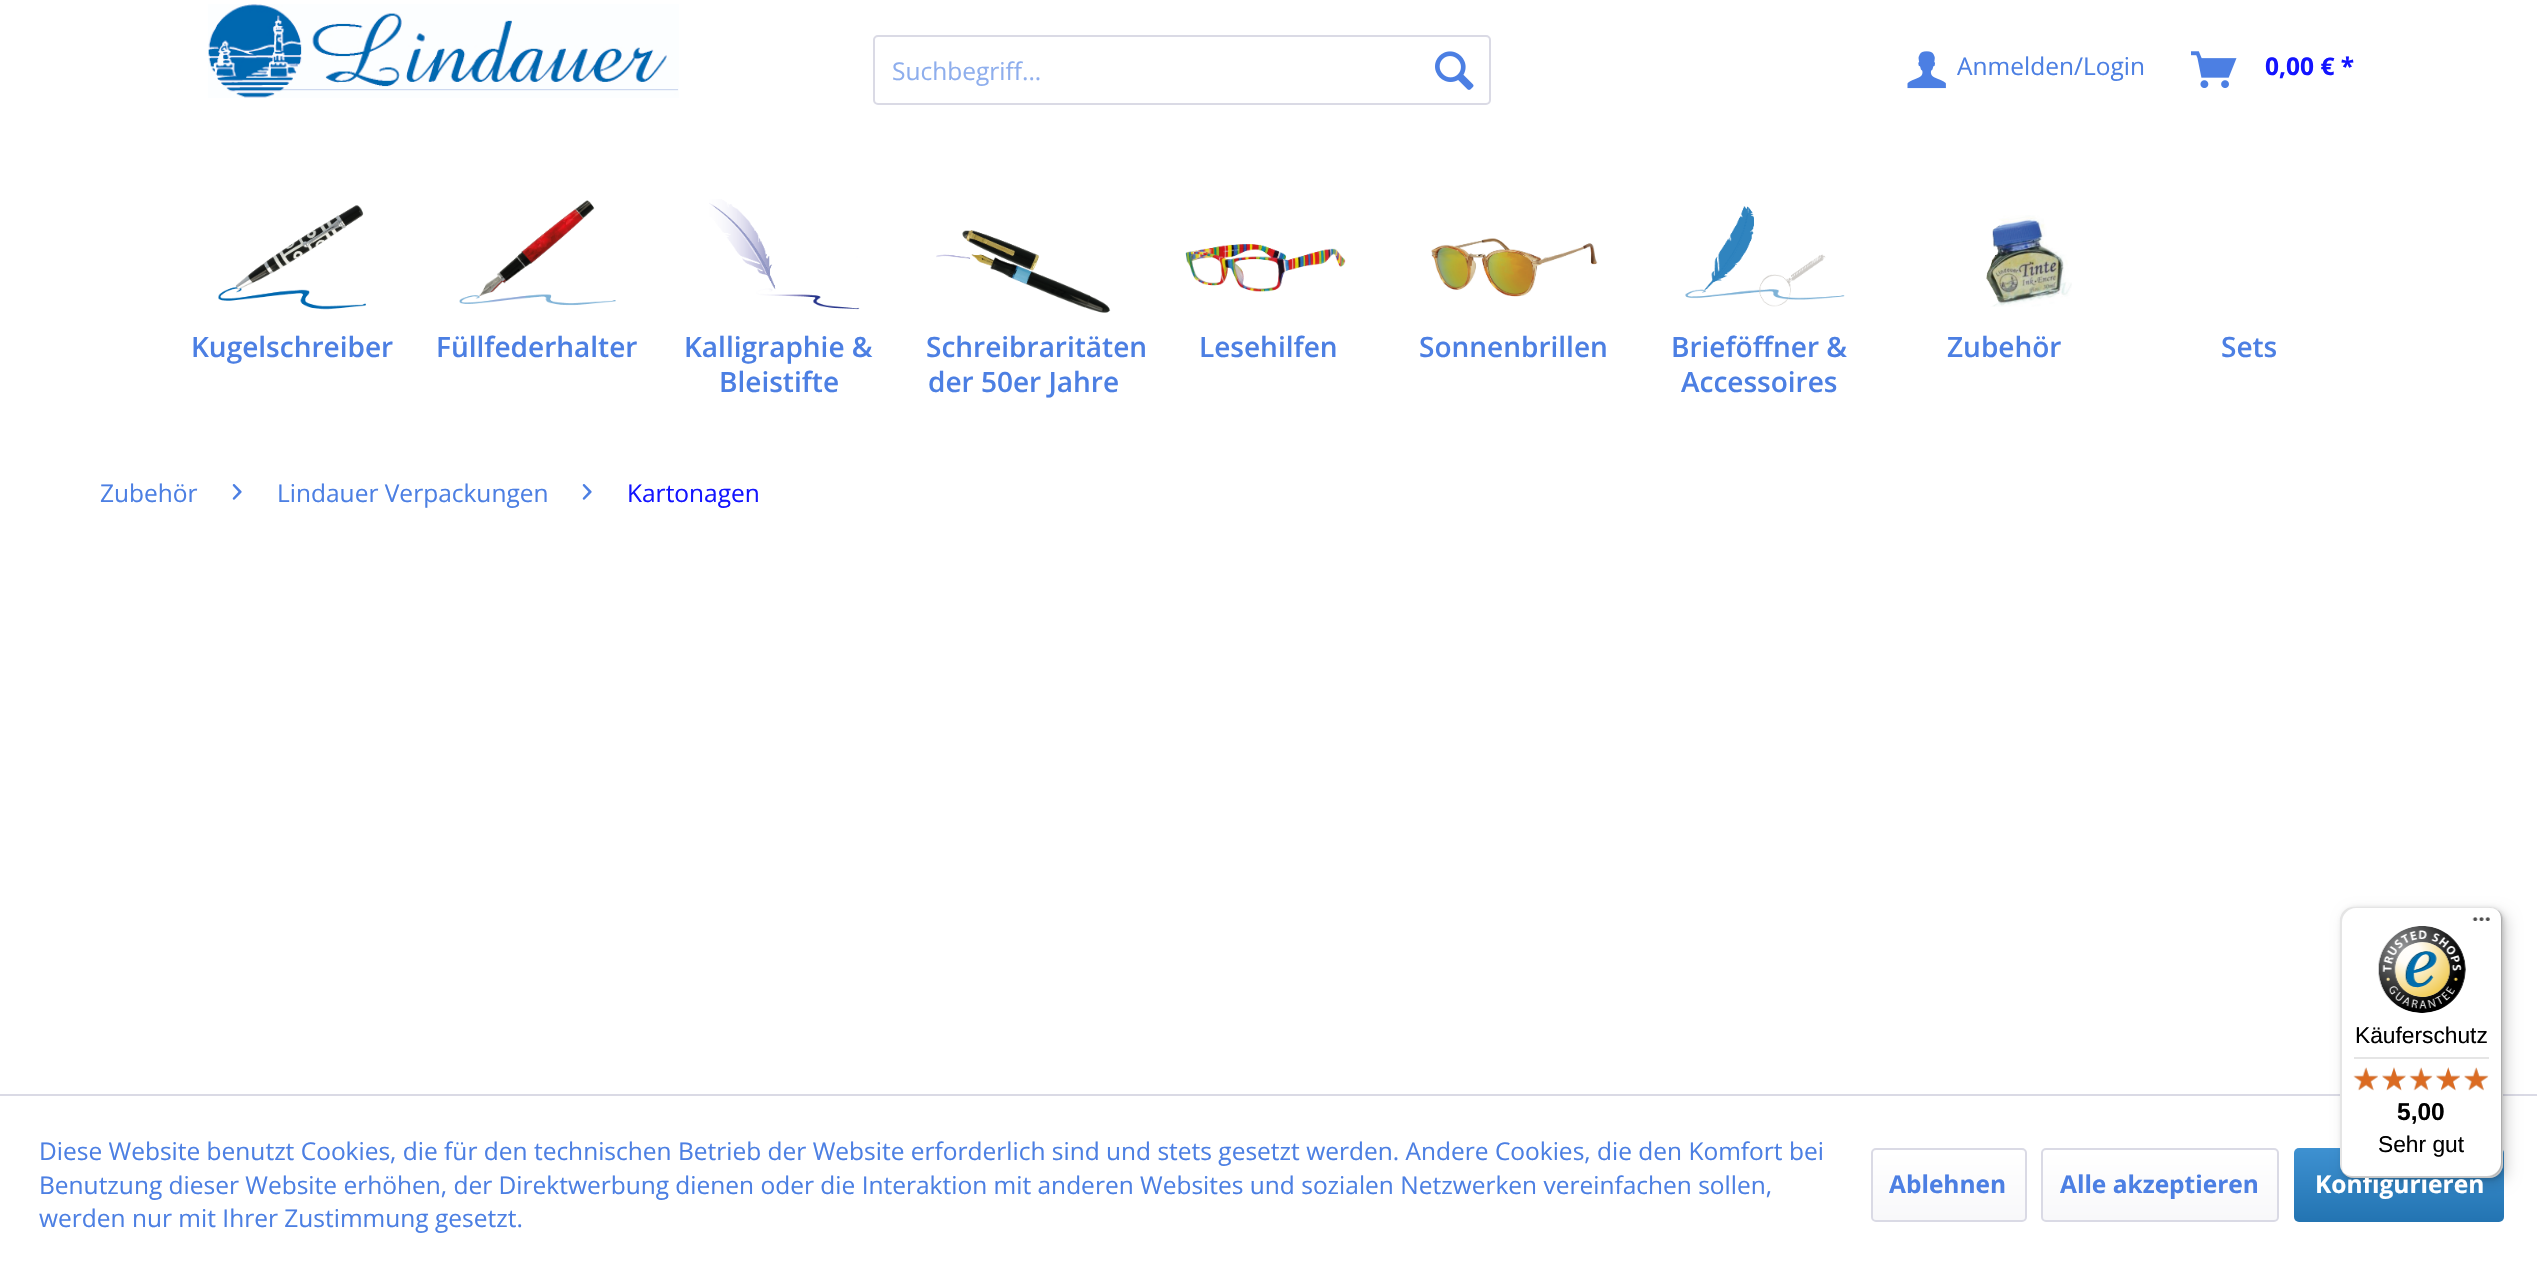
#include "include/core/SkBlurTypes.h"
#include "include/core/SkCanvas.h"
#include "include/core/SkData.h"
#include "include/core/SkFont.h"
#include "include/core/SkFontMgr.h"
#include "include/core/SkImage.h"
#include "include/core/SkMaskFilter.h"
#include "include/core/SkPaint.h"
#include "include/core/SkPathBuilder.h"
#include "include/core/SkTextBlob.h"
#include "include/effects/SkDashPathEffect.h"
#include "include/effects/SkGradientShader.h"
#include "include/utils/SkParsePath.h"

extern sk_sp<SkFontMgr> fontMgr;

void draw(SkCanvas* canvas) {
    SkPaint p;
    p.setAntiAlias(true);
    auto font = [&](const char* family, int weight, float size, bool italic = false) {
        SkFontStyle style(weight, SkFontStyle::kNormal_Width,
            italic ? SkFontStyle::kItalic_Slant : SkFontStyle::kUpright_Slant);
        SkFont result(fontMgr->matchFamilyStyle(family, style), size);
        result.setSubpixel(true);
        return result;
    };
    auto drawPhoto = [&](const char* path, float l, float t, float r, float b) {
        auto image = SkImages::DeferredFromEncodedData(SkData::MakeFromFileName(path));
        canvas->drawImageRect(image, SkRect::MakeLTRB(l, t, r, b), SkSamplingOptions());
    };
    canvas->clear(0xFFFFFFFF);
    drawPhoto("media/1.png", 208, 4, 679, 98);
    p.setStyle(SkPaint::kStroke_Style);
    p.setStrokeWidth(2);
    p.setColor(0xFFDADAE5);
    canvas->drawRoundRect(SkRect::MakeLTRB(874, 36, 1490, 104), 4, 4, p);
    auto font1 = font("Open Sans", 400, 24.5f);
    p.setStyle(SkPaint::kFill_Style);
    p.setColor(0xFF8EAEED);
    canvas->drawString("Suchbegriff...", 892, 80, font1, p);
    drawPhoto("media/2.png", 1435, 51, 1474, 90);
    drawPhoto("media/3.png", 1907, 51, 1946, 89);
    p.setColor(0xFF4C7FE3);
    canvas->drawString("Anmelden/Login", 1957, 75, font1, p);
    drawPhoto("media/4.png", 2191, 51, 2237, 88);
    auto font2 = font("Open Sans", 700, 24.5f);
    p.setColor(0xFF1314FF);
    canvas->drawString("0,00 € *", 2265, 75, font2, p);
    drawPhoto("media/5.png", 218, 205, 366, 310);
    auto font3 = font("Open Sans", 600, 28);
    p.setColor(0xFF4C7FE3);
    canvas->drawString("Kugelschreiber", 191, 357, font3, p);
    drawPhoto("media/6.png", 459, 200, 616, 306);
    canvas->drawString("Füllfederhalter", 436, 357, font3, p);
    drawPhoto("media/7.png", 709, 199, 860, 310);
    canvas->drawString("Kalligraphie &", 684, 357, font3, p);
    canvas->drawString("Bleistifte", 719, 392, font3, p);
    drawPhoto("media/8.png", 936, 230, 1111, 313);
    canvas->drawString("Schreibraritäten", 926, 357, font3, p);
    canvas->drawString("der 50er Jahre", 928, 392, font3, p);
    drawPhoto("media/9.png", 1185, 244, 1346, 292);
    canvas->drawString("Lesehilfen", 1199, 357, font3, p);
    drawPhoto("media/10.png", 1431, 238, 1598, 297);
    canvas->drawString("Sonnenbrillen", 1419, 357, font3, p);
    drawPhoto("media/11.png", 1685, 206, 1845, 307);
    canvas->drawString("Brieföffner &", 1671, 357, font3, p);
    canvas->drawString("Accessoires", 1681, 392, font3, p);
    drawPhoto("media/12.png", 1986, 215, 2072, 307);
    canvas->drawString("Zubehör", 1947, 357, font3, p);
    canvas->drawString("Sets", 2221, 357, font3, p);
    canvas->drawString("Zubehör", 100, 502, font1, p);
    drawPhoto("media/13.png", 232, 484, 242, 500);
    canvas->drawString("Lindauer Verpackungen", 277, 502, font1, p);
    drawPhoto("media/13.png", 582, 484, 592, 500);
    p.setColor(0xFF1314FF);
    canvas->drawString("Kartonagen", 627, 502, font1, p);
    p.setColor(0xFFDADAE5);
    canvas->drawRect(SkRect::MakeLTRB(0, 1094, 2537, 1096), p);
    {
        const SkColor colors[] = {0xFF3E91D1, 0xFF2374B2};
        const float stops[] = {0, 1};
        const SkPoint ends[] = {{2399, 1148}, {2399, 1222}};
        p.setShader(SkGradientShader::MakeLinear(ends, colors, stops, 2, SkTileMode::kClamp));
        p.setAlpha(255);
    }
    canvas->drawRoundRect(SkRect::MakeLTRB(2294, 1148, 2504, 1222), 5, 5, p);
    p.setShader(nullptr);
    p.setColor(0x26000000);
    p.setMaskFilter(SkMaskFilter::MakeBlur(kNormal_SkBlurStyle, 7));
    canvas->drawRoundRect(SkRect::MakeLTRB(2345, 912, 2508, 1183), 14, 14, p);
    p.setMaskFilter(nullptr);
    p.setMaskFilter(SkMaskFilter::MakeBlur(kNormal_SkBlurStyle, 2));
    canvas->drawRoundRect(SkRect::MakeLTRB(2342, 908, 2504, 1180), 14, 14, p);
    p.setMaskFilter(nullptr);
    p.setColor(0xFFFFFFFF);
    canvas->drawRoundRect(SkRect::MakeLTRB(2340, 907, 2503, 1178), 14, 14, p);
    p.setColor(0x1A000000);
    canvas->drawPath(SkPathBuilder().moveTo(2356, 908).lineTo(2490, 908).cubicTo(2494, 908, 2498, 910, 2500, 913).cubicTo(2498, 909, 2494, 907, 2489, 907).lineTo(2354, 907).cubicTo(2346, 907, 2340, 913, 2340, 921).lineTo(2340, 1164).cubicTo(2340, 1169, 2342, 1173, 2346, 1175).cubicTo(2343, 1173, 2342, 1169, 2342, 1166).lineTo(2342, 922).cubicTo(2342, 915, 2348, 908, 2356, 908).close().detach(), p);
    p.setColor(0xFFFFFFFF);
    canvas->drawString("Konfigurieren", 2315, 1193, font2, p);
    p.setColor(0x33000000);
    canvas->drawPath(SkPathBuilder().moveTo(2344, 1173).cubicTo(2346, 1176, 2350, 1178, 2354, 1178).lineTo(2489, 1178).cubicTo(2497, 1178, 2503, 1172, 2503, 1164).lineTo(2503, 921).cubicTo(2503, 916, 2501, 912, 2497, 910).cubicTo(2500, 912, 2501, 915, 2501, 919).lineTo(2501, 1162).cubicTo(2501, 1170, 2494, 1176, 2487, 1176).lineTo(2352, 1176).cubicTo(2349, 1176, 2346, 1175, 2344, 1173).close().detach(), p);
    p.setColor(0x33323232);
    canvas->drawPath(SkPathBuilder().moveTo(2343, 1172).cubicTo(2345, 1176, 2349, 1178, 2354, 1178).lineTo(2489, 1178).cubicTo(2497, 1178, 2503, 1172, 2503, 1164).lineTo(2503, 921).cubicTo(2503, 916, 2501, 912, 2497, 910).cubicTo(2500, 912, 2501, 916, 2501, 919).lineTo(2501, 1163).cubicTo(2501, 1170, 2495, 1177, 2487, 1177).lineTo(2353, 1177).cubicTo(2349, 1177, 2345, 1175, 2343, 1172).close().detach(), p);
    p.setColor(0x4DFFFFFF);
    canvas->drawPath(SkPathBuilder().moveTo(2345, 1174).cubicTo(2347, 1177, 2350, 1178, 2354, 1178).lineTo(2489, 1178).cubicTo(2497, 1178, 2503, 1172, 2503, 1164).lineTo(2503, 921).cubicTo(2503, 916, 2501, 912, 2497, 910).cubicTo(2500, 912, 2502, 916, 2502, 920).lineTo(2502, 1163).cubicTo(2502, 1171, 2495, 1177, 2488, 1177).lineTo(2353, 1177).cubicTo(2350, 1177, 2347, 1176, 2345, 1174).close().detach(), p);
    drawPhoto("media/14.png", 2472, 917, 2490, 921);
    drawPhoto("media/15.png", 2378, 926, 2466, 1013);
    auto font4 = font("Liberation Sans", 400, 22.75f);
    p.setColor(0xFF000000);
    canvas->drawString("Käuferschutz", 2355, 1043, font4, p);
    p.setColor(0xFFE5E5E5);
    canvas->drawRect(SkRect::MakeLTRB(2354, 1057, 2489, 1059), p);
    drawPhoto("media/16.png", 2353, 1068, 2378, 1090);
    drawPhoto("media/17.png", 2382, 1067, 2406, 1090);
    drawPhoto("media/18.png", 2409, 1068, 2433, 1090);
    drawPhoto("media/19.png", 2436, 1067, 2460, 1090);
    drawPhoto("media/20.png", 2464, 1068, 2488, 1090);
    drawPhoto("media/21.png", 2353, 1067, 2378, 1091);
    drawPhoto("media/22.png", 2382, 1067, 2406, 1091);
    drawPhoto("media/23.png", 2409, 1067, 2433, 1091);
    drawPhoto("media/24.png", 2436, 1067, 2460, 1091);
    drawPhoto("media/25.png", 2464, 1067, 2489, 1091);
    auto font5 = font("Liberation Sans", 700, 24.5f);
    p.setColor(0xFF000000);
    canvas->drawString("5,00", 2397, 1120, font5, p);
    canvas->drawString("Sehr gut", 2378, 1152, font4, p);
    p.setColor(0xFF4C7FE3);
    {
        const struct { const char* s; float x, y; } items[] = {
            {"Diese Website benutzt Cookies, die für den technischen Betrieb der Website erforderlich sind und stets gesetzt werden. Andere Cookies, die den Komfort bei", 39, 1160},
            {"Benutzung dieser Website erhöhen, der Direktwerbung dienen oder die Interaktion mit anderen Websites und sozialen Netzwerken vereinfachen sollen,", 39, 1194},
            {"werden nur mit Ihrer Zustimmung gesetzt.", 39, 1227},
        };
        for (auto [s, x, y] : items) {
            canvas->drawString(s, x, y, font1, p);
        }
    }
    {
        const SkColor colors[] = {0xFFFFFFFF, 0xFFF8F8FA};
        const float stops[] = {0, 1};
        const SkPoint ends[] = {{1949, 1150}, {1949, 1220}};
        p.setShader(SkGradientShader::MakeLinear(ends, colors, stops, 2, SkTileMode::kClamp));
        p.setAlpha(255);
    }
    canvas->drawRoundRect(SkRect::MakeLTRB(1873, 1150, 2025, 1220), 4, 4, p);
    p.setStyle(SkPaint::kStroke_Style);
    p.setShader(nullptr);
    p.setColor(0xFFDADAE5);
    canvas->drawRoundRect(SkRect::MakeLTRB(1872, 1149, 2026, 1221), 4, 4, p);
    p.setStyle(SkPaint::kFill_Style);
    p.setColor(0xFF4C7FE3);
    canvas->drawString("Ablehnen", 1889, 1193, font2, p);
    {
        const SkColor colors[] = {0xFFFFFFFF, 0xFFF8F8FA};
        const float stops[] = {0, 1};
        const SkPoint ends[] = {{2160, 1150}, {2160, 1220}};
        p.setShader(SkGradientShader::MakeLinear(ends, colors, stops, 2, SkTileMode::kClamp));
        p.setAlpha(255);
    }
    canvas->drawRoundRect(SkRect::MakeLTRB(2042, 1150, 2277, 1220), 4, 4, p);
    p.setStyle(SkPaint::kStroke_Style);
    p.setShader(nullptr);
    p.setColor(0xFFDADAE5);
    canvas->drawRoundRect(SkRect::MakeLTRB(2042, 1149, 2278, 1221), 4, 4, p);
    p.setStyle(SkPaint::kFill_Style);
    p.setColor(0xFF4C7FE3);
    canvas->drawString("Alle akzeptieren", 2060, 1193, font2, p);
}
